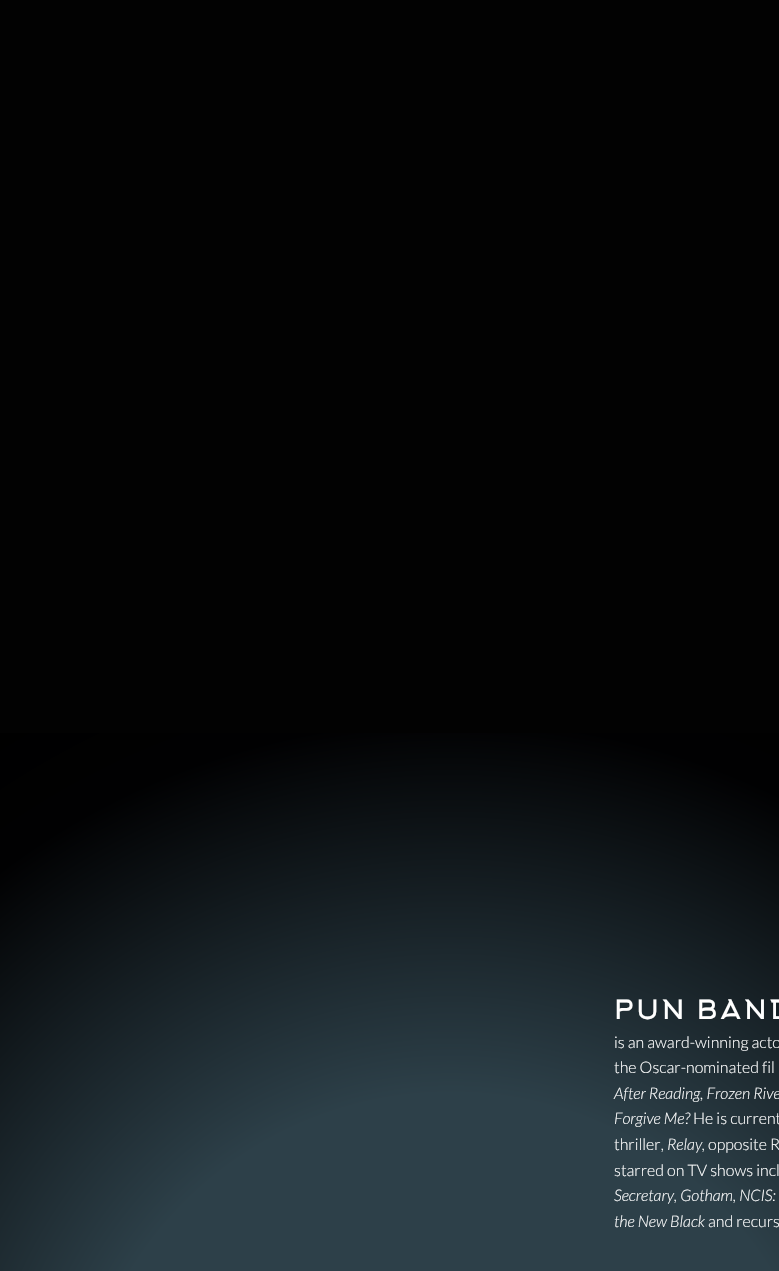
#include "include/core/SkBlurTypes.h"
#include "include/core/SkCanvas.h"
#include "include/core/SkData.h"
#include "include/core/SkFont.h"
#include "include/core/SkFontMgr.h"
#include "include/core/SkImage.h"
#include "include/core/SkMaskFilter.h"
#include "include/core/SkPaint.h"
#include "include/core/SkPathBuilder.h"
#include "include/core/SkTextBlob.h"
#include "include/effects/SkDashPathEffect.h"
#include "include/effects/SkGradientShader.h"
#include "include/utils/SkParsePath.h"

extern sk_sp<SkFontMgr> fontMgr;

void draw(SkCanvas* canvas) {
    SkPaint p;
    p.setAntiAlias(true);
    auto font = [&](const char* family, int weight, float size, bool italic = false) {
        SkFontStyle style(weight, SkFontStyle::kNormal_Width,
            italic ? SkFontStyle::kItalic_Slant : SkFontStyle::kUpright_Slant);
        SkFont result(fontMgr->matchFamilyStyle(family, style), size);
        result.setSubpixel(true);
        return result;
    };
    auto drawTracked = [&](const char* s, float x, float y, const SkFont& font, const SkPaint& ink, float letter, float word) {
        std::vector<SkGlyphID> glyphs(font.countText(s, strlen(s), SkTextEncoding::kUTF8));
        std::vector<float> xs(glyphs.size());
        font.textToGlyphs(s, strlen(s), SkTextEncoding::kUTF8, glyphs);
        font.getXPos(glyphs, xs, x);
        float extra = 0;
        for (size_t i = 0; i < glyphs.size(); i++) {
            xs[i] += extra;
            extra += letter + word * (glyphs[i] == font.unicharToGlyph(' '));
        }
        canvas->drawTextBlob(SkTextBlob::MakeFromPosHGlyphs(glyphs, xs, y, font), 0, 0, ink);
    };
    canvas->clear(0xFF020202);
    {
        const SkColor colors[] = {0xFF2D4049, 0xFF010102, 0xFF000000};
        const float stops[] = {0.4f, 0.8f, 0.94f};
        p.setShader(SkGradientShader::MakeRadial({451, 1469}, 937, colors, stops, 3, SkTileMode::kClamp));
        p.setAlpha(255);
    }
    canvas->drawRect(SkRect::MakeLTRB(0, 733, 779, 1271), p);
    auto font1 = font("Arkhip", 400, 26);
    p.setShader(nullptr);
    p.setColor(0xFFFFFFFF);
    drawTracked("PUN BAND", 614, 1019, font1, p, 2.5f, 0);
    auto font2 = font("Lato", 300, 16);
    canvas->drawString("is an award-winning acto", 614, 1048, font2, p);
    canvas->drawString("the Oscar-nominated fil", 614, 1073, font2, p);
    auto font3 = font("Lato", 300, 16, true);
    canvas->drawString("After Reading, Frozen Rive", 614, 1099, font3, p);
    canvas->drawString("Forgive Me?", 614, 1124, font3, p);
    canvas->drawString("He is current", 693, 1124, font2, p);
    canvas->drawString("thriller,", 614, 1150, font2, p);
    canvas->drawString("Relay,", 667, 1150, font3, p);
    canvas->drawString("opposite R", 708, 1150, font2, p);
    canvas->drawString("starred on TV shows incl", 614, 1176, font2, p);
    canvas->drawString("Secretary, Gotham, NCIS:", 614, 1201, font3, p);
    canvas->drawString("the New Black", 614, 1227, font3, p);
    canvas->drawString("and recurs", 708, 1227, font2, p);
}
